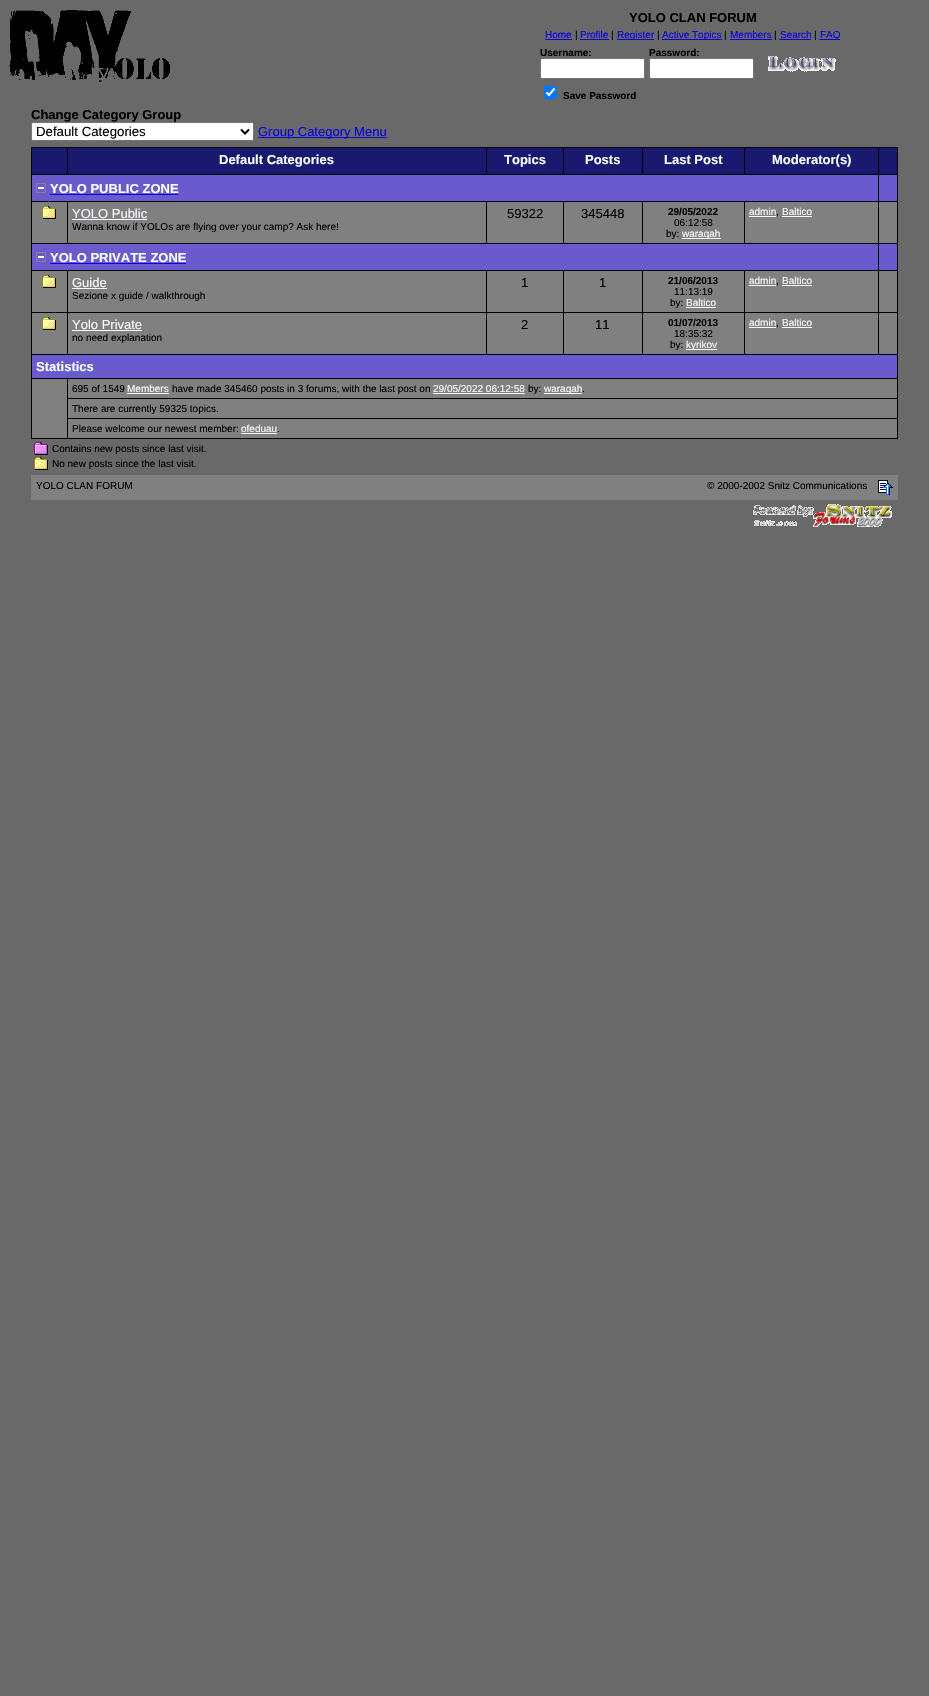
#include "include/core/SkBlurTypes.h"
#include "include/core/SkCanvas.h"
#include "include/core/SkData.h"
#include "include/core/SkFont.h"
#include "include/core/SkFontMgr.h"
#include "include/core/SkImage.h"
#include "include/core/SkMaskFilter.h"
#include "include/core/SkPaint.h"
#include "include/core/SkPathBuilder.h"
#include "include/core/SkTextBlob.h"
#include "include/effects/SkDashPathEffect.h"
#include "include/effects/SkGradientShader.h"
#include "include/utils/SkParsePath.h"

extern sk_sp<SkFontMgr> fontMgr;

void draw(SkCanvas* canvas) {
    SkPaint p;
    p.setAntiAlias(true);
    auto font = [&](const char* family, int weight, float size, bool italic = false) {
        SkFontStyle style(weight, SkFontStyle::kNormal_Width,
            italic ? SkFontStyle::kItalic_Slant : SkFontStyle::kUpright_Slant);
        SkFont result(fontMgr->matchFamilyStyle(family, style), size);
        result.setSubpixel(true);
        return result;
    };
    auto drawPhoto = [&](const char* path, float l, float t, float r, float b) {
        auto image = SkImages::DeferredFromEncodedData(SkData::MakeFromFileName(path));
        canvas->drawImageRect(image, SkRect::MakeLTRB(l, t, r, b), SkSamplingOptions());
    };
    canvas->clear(0xFF696969);
    drawPhoto("media/1.png", 9, 9, 170, 82);
    auto font1 = font("Liberation Sans", 700, 13);
    p.setColor(0xFF000000);
    canvas->drawString("YOLO CLAN FORUM", 629, 22, font1, p);
    auto font2 = font("Liberation Sans", 400, 10);
    p.setColor(0xFF0A00E0);
    canvas->drawString("Home", 545, 38, font2, p);
    canvas->drawRect(SkRect::MakeLTRB(545, 39, 572, 40), p);
    p.setColor(0xFF000000);
    canvas->drawString("|", 575, 38, font2, p);
    p.setColor(0xFF0A00E0);
    canvas->drawString("Profile", 580, 38, font2, p);
    canvas->drawRect(SkRect::MakeLTRB(580, 39, 609, 40), p);
    p.setColor(0xFF000000);
    canvas->drawString("|", 611, 38, font2, p);
    p.setColor(0xFF0A00E0);
    canvas->drawRect(SkRect::MakeLTRB(617, 39, 654, 40), p);
    canvas->drawString("Register", 617, 38, font2, p);
    p.setColor(0xFF000000);
    canvas->drawString("|", 657, 38, font2, p);
    p.setColor(0xFF0A00E0);
    canvas->drawRect(SkRect::MakeLTRB(662, 39, 722, 40), p);
    canvas->drawString("Active Topics", 662, 38, font2, p);
    p.setColor(0xFF000000);
    canvas->drawString("|", 724, 38, font2, p);
    p.setColor(0xFF0A00E0);
    canvas->drawString("Members", 730, 38, font2, p);
    canvas->drawRect(SkRect::MakeLTRB(730, 39, 772, 40), p);
    p.setColor(0xFF000000);
    canvas->drawString("|", 774, 38, font2, p);
    p.setColor(0xFF0A00E0);
    canvas->drawString("Search", 780, 38, font2, p);
    p.setStyle(SkPaint::kStroke_Style);
    p.setStrokeWidth(1);
    p.setPathEffect(SkDashPathEffect::Make({{1, 1}}, 0));
    canvas->drawPath(SkPathBuilder().moveTo(779.5f, 39.5f).lineTo(811.5f, 39.5f).detach(), p);
    p.setPathEffect(nullptr);
    p.setStyle(SkPaint::kFill_Style);
    canvas->drawRect(SkRect::MakeLTRB(780, 39, 811, 40), p);
    p.setColor(0xFF000000);
    canvas->drawString("|", 814, 38, font2, p);
    p.setStyle(SkPaint::kStroke_Style);
    p.setColor(0xFF0A00E0);
    p.setPathEffect(SkDashPathEffect::Make({{1, 1}}, 0));
    canvas->drawPath(SkPathBuilder().moveTo(819.5f, 39.5f).lineTo(840, 39.5f).detach(), p);
    p.setPathEffect(nullptr);
    p.setStyle(SkPaint::kFill_Style);
    canvas->drawRect(SkRect::MakeLTRB(820, 39, 840, 40), p);
    canvas->drawString("FAQ", 820, 38, font2, p);
    auto font3 = font("Liberation Sans", 700, 10);
    p.setColor(0xFF000000);
    canvas->drawString("Username:", 540, 56, font3, p);
    p.setColor(0xFFFFFFFF);
    canvas->drawRoundRect(SkRect::MakeLTRB(540.5f, 58.5f, 644.5f, 78.5f), 1.5f, 1.5f, p);
    p.setStyle(SkPaint::kStroke_Style);
    p.setColor(0xFF767676);
    canvas->drawRoundRect(SkRect::MakeLTRB(540.5f, 58.5f, 644.5f, 78.5f), 1.5f, 1.5f, p);
    p.setStyle(SkPaint::kFill_Style);
    p.setColor(0xFF000000);
    canvas->drawString("Password:", 649, 56, font3, p);
    p.setColor(0xFFFFFFFF);
    canvas->drawRoundRect(SkRect::MakeLTRB(649.5f, 58.5f, 753.5f, 78.5f), 1.5f, 1.5f, p);
    p.setStyle(SkPaint::kStroke_Style);
    p.setColor(0xFF767676);
    canvas->drawRoundRect(SkRect::MakeLTRB(649.5f, 58.5f, 753.5f, 78.5f), 1.5f, 1.5f, p);
    drawPhoto("media/2.png", 768, 56, 836, 72);
    p.setStyle(SkPaint::kFill_Style);
    p.setColor(0xFF0075FF);
    canvas->drawRoundRect(SkRect::MakeLTRB(544, 86, 557, 99), 2, 2, p);
    p.setStyle(SkPaint::kStroke_Style);
    p.setStrokeWidth(2.1f);
    p.setColor(0xFFFFFFFF);
    canvas->drawPath(SkPathBuilder().moveTo(546.5f, 92.5f).lineTo(549, 95).lineTo(554.5f, 88.5f).detach(), p);
    p.setStyle(SkPaint::kFill_Style);
    p.setColor(0xFF000000);
    canvas->drawString("Save Password", 563, 99, font3, p);
    canvas->drawString("Change Category Group", 31, 119, font1, p);
    p.setColor(0xFFFFFFFF);
    canvas->drawRoundRect(SkRect::MakeLTRB(31.5f, 122.5f, 253.5f, 140.5f), 1.5f, 1.5f, p);
    p.setStyle(SkPaint::kStroke_Style);
    p.setStrokeWidth(1);
    p.setColor(0xFF767676);
    canvas->drawRoundRect(SkRect::MakeLTRB(31.5f, 122.5f, 253.5f, 140.5f), 1.5f, 1.5f, p);
    p.setStrokeWidth(2);
    p.setColor(0xFF000000);
    canvas->drawPath(SkPathBuilder().moveTo(241, 129.5f).lineTo(245, 133.5f).lineTo(249, 129.5f).detach(), p);
    auto font4 = font("Liberation Sans", 400, 13.25f);
    p.setStyle(SkPaint::kFill_Style);
    canvas->drawString("Default Categories", 36, 136, font4, p);
    p.setStyle(SkPaint::kStroke_Style);
    p.setStrokeWidth(1);
    p.setColor(0xFF0A00E0);
    p.setPathEffect(SkDashPathEffect::Make({{1, 1}}, 0));
    canvas->drawPath(SkPathBuilder().moveTo(258, 137.5f).lineTo(386.5f, 137.5f).detach(), p);
    p.setPathEffect(nullptr);
    p.setStyle(SkPaint::kFill_Style);
    canvas->drawRect(SkRect::MakeLTRB(258, 137, 386, 138), p);
    auto font5 = font("Liberation Sans", 400, 13);
    canvas->drawString("Group Category Menu", 258, 136, font5, p);
    {
        const struct { float l, t, r, b; SkColor color; } items[] = {
            {31, 147, 898, 439, 0xFF000000},
            {32, 148, 67, 174, 0xFF191970},
            {68, 148, 486, 174, 0xFF191970},
        };
        for (auto [l, t, r, b, color] : items) {
            p.setColor(color);
            canvas->drawRect(SkRect::MakeLTRB(l, t, r, b), p);
        }
    }
    p.setColor(0xFFF5FFFA);
    canvas->drawString("Default Categories", 219, 164, font1, p);
    p.setColor(0xFF191970);
    canvas->drawRect(SkRect::MakeLTRB(487, 148, 563, 174), p);
    p.setColor(0xFFF5FFFA);
    canvas->drawString("Topics", 504, 164, font1, p);
    p.setColor(0xFF191970);
    canvas->drawRect(SkRect::MakeLTRB(564, 148, 642, 174), p);
    p.setColor(0xFFF5FFFA);
    canvas->drawString("Posts", 585, 164, font1, p);
    p.setColor(0xFF191970);
    canvas->drawRect(SkRect::MakeLTRB(643, 148, 744, 174), p);
    p.setColor(0xFFF5FFFA);
    canvas->drawString("Last Post", 664, 164, font1, p);
    p.setColor(0xFF191970);
    canvas->drawRect(SkRect::MakeLTRB(745, 148, 878, 174), p);
    p.setColor(0xFFF5FFFA);
    canvas->drawString("Moderator(s)", 772, 164, font1, p);
    p.setColor(0xFF191970);
    canvas->drawRect(SkRect::MakeLTRB(879, 148, 897, 174), p);
    p.setColor(0xFF6A5ACD);
    canvas->drawRect(SkRect::MakeLTRB(32, 175, 878, 201), p);
    drawPhoto("media/3.png", 36, 183, 46, 193);
    p.setColor(0xFFF5FFFA);
    canvas->drawString("YOLO PUBLIC ZONE", 50, 193, font1, p);
    {
        const struct { float l, t, r, b; SkColor color; } items[] = {
            {50, 194, 178, 195, 0xFF0A00E0},
            {879, 175, 897, 201, 0xFF6A5ACD},
            {32, 202, 67, 243, 0xFF808080},
        };
        for (auto [l, t, r, b, color] : items) {
            p.setColor(color);
            canvas->drawRect(SkRect::MakeLTRB(l, t, r, b), p);
        }
    }
    drawPhoto("media/4.png", 42, 206, 56, 219);
    canvas->drawRect(SkRect::MakeLTRB(68, 202, 486, 243), p);
    p.setColor(0xFFF8F8FF);
    canvas->drawString("YOLO Public", 72, 218, font5, p);
    canvas->drawRect(SkRect::MakeLTRB(72, 219, 147, 220), p);
    p.setColor(0xFF000000);
    canvas->drawString("Wanna know if YOLOs are flying over your camp? Ask here!", 72, 230, font2, p);
    p.setColor(0xFF808080);
    canvas->drawRect(SkRect::MakeLTRB(487, 202, 563, 243), p);
    p.setColor(0xFF000000);
    canvas->drawString("59322", 507, 218, font5, p);
    p.setColor(0xFF808080);
    canvas->drawRect(SkRect::MakeLTRB(564, 202, 642, 243), p);
    p.setColor(0xFF000000);
    canvas->drawString("345448", 581, 218, font5, p);
    p.setColor(0xFF808080);
    canvas->drawRect(SkRect::MakeLTRB(643, 202, 744, 243), p);
    p.setColor(0xFF000000);
    canvas->drawString("29/05/2022", 668, 215, font3, p);
    canvas->drawString("06:12:58", 674, 226, font2, p);
    canvas->drawString("by:", 666, 237, font2, p);
    p.setColor(0xFFF8F8FF);
    canvas->drawRect(SkRect::MakeLTRB(682, 238, 721, 239), p);
    canvas->drawString("waraqah", 682, 237, font2, p);
    p.setColor(0xFF808080);
    canvas->drawRect(SkRect::MakeLTRB(745, 202, 878, 243), p);
    p.setColor(0xFFF8F8FF);
    canvas->drawString("admin", 749, 215, font2, p);
    p.setColor(0xFF000000);
    canvas->drawString(",", 776, 215, font2, p);
    p.setColor(0xFFF8F8FF);
    canvas->drawRect(SkRect::MakeLTRB(749, 216, 776, 217), p);
    canvas->drawRect(SkRect::MakeLTRB(782, 216, 812, 217), p);
    canvas->drawString("Baltico", 782, 215, font2, p);
    p.setColor(0xFF808080);
    canvas->drawRect(SkRect::MakeLTRB(879, 202, 897, 243), p);
    p.setColor(0xFF6A5ACD);
    canvas->drawRect(SkRect::MakeLTRB(32, 244, 878, 270), p);
    drawPhoto("media/3.png", 36, 252, 46, 262);
    p.setColor(0xFFF5FFFA);
    canvas->drawString("YOLO PRIVATE ZONE", 50, 262, font1, p);
    {
        const struct { float l, t, r, b; SkColor color; } items[] = {
            {50, 263, 186, 264, 0xFF0A00E0},
            {879, 244, 897, 270, 0xFF6A5ACD},
            {32, 271, 67, 312, 0xFF808080},
        };
        for (auto [l, t, r, b, color] : items) {
            p.setColor(color);
            canvas->drawRect(SkRect::MakeLTRB(l, t, r, b), p);
        }
    }
    drawPhoto("media/4.png", 42, 275, 56, 288);
    canvas->drawRect(SkRect::MakeLTRB(68, 271, 486, 312), p);
    p.setColor(0xFFF8F8FF);
    canvas->drawString("Guide", 72, 287, font5, p);
    canvas->drawRect(SkRect::MakeLTRB(72, 288, 107, 289), p);
    p.setColor(0xFF000000);
    canvas->drawString("Sezione x guide / walkthrough", 72, 299, font2, p);
    p.setColor(0xFF808080);
    canvas->drawRect(SkRect::MakeLTRB(487, 271, 563, 312), p);
    p.setColor(0xFF000000);
    canvas->drawString("1", 521, 287, font5, p);
    p.setColor(0xFF808080);
    canvas->drawRect(SkRect::MakeLTRB(564, 271, 642, 312), p);
    p.setColor(0xFF000000);
    canvas->drawString("1", 599, 287, font5, p);
    p.setColor(0xFF808080);
    canvas->drawRect(SkRect::MakeLTRB(643, 271, 744, 312), p);
    p.setColor(0xFF000000);
    canvas->drawString("21/06/2013", 668, 284, font3, p);
    canvas->drawString("11:13:19", 674, 295, font2, p);
    canvas->drawString("by:", 670, 306, font2, p);
    p.setColor(0xFFF8F8FF);
    canvas->drawString("Baltico", 686, 306, font2, p);
    canvas->drawRect(SkRect::MakeLTRB(686, 307, 716, 308), p);
    p.setColor(0xFF808080);
    canvas->drawRect(SkRect::MakeLTRB(745, 271, 878, 312), p);
    p.setColor(0xFFF8F8FF);
    canvas->drawString("admin", 749, 284, font2, p);
    p.setColor(0xFF000000);
    canvas->drawString(",", 776, 284, font2, p);
    p.setColor(0xFFF8F8FF);
    canvas->drawRect(SkRect::MakeLTRB(749, 285, 776, 286), p);
    canvas->drawRect(SkRect::MakeLTRB(782, 285, 812, 286), p);
    canvas->drawString("Baltico", 782, 284, font2, p);
    p.setColor(0xFF808080);
    canvas->drawRect(SkRect::MakeLTRB(879, 271, 897, 312), p);
    canvas->drawRect(SkRect::MakeLTRB(32, 313, 67, 354), p);
    drawPhoto("media/4.png", 42, 317, 56, 330);
    canvas->drawRect(SkRect::MakeLTRB(68, 313, 486, 354), p);
    p.setColor(0xFFF8F8FF);
    canvas->drawString("Yolo Private", 72, 329, font5, p);
    canvas->drawRect(SkRect::MakeLTRB(72, 330, 142, 331), p);
    p.setColor(0xFF000000);
    canvas->drawString("no need explanation", 72, 341, font2, p);
    p.setColor(0xFF808080);
    canvas->drawRect(SkRect::MakeLTRB(487, 313, 563, 354), p);
    p.setColor(0xFF000000);
    canvas->drawString("2", 521, 329, font5, p);
    p.setColor(0xFF808080);
    canvas->drawRect(SkRect::MakeLTRB(564, 313, 642, 354), p);
    p.setColor(0xFF000000);
    canvas->drawString("11", 595, 329, font5, p);
    p.setColor(0xFF808080);
    canvas->drawRect(SkRect::MakeLTRB(643, 313, 744, 354), p);
    p.setColor(0xFF000000);
    canvas->drawString("01/07/2013", 668, 326, font3, p);
    canvas->drawString("18:35:32", 674, 337, font2, p);
    canvas->drawString("by:", 670, 348, font2, p);
    p.setColor(0xFFF8F8FF);
    canvas->drawRect(SkRect::MakeLTRB(686, 349, 717, 350), p);
    canvas->drawString("kyrikov", 686, 348, font2, p);
    p.setColor(0xFF808080);
    canvas->drawRect(SkRect::MakeLTRB(745, 313, 878, 354), p);
    p.setColor(0xFFF8F8FF);
    canvas->drawString("admin", 749, 326, font2, p);
    p.setColor(0xFF000000);
    canvas->drawString(",", 776, 326, font2, p);
    p.setColor(0xFFF8F8FF);
    canvas->drawRect(SkRect::MakeLTRB(749, 327, 776, 328), p);
    canvas->drawRect(SkRect::MakeLTRB(782, 327, 812, 328), p);
    canvas->drawString("Baltico", 782, 326, font2, p);
    p.setColor(0xFF808080);
    canvas->drawRect(SkRect::MakeLTRB(879, 313, 897, 354), p);
    p.setColor(0xFF6A5ACD);
    canvas->drawRect(SkRect::MakeLTRB(32, 355, 897, 378), p);
    p.setColor(0xFFF5FFFA);
    canvas->drawString("Statistics", 36, 371, font1, p);
    p.setColor(0xFF808080);
    canvas->drawRect(SkRect::MakeLTRB(32, 379, 67, 438), p);
    canvas->drawRect(SkRect::MakeLTRB(68, 379, 897, 398), p);
    p.setColor(0xFF000000);
    canvas->drawString("695 of 1549", 72, 392, font2, p);
    p.setColor(0xFFF8F8FF);
    canvas->drawString("Members", 127, 392, font2, p);
    canvas->drawRect(SkRect::MakeLTRB(127, 393, 169, 394), p);
    p.setColor(0xFF000000);
    canvas->drawString("have made 345460 posts in 3 forums, with the last post on", 172, 392, font2, p);
    p.setColor(0xFFF8F8FF);
    canvas->drawString("29/05/2022 06:12:58", 433, 392, font2, p);
    canvas->drawRect(SkRect::MakeLTRB(433, 393, 525, 394), p);
    p.setColor(0xFF000000);
    canvas->drawString("by:", 528, 392, font2, p);
    p.setColor(0xFFF8F8FF);
    canvas->drawRect(SkRect::MakeLTRB(544, 393, 582, 394), p);
    canvas->drawString("waraqah", 544, 392, font2, p);
    p.setColor(0xFF000000);
    canvas->drawString(".", 582, 392, font2, p);
    p.setColor(0xFF808080);
    canvas->drawRect(SkRect::MakeLTRB(68, 399, 897, 418), p);
    p.setColor(0xFF000000);
    canvas->drawString("There are currently 59325 topics.", 72, 412, font2, p);
    p.setColor(0xFF808080);
    canvas->drawRect(SkRect::MakeLTRB(68, 419, 897, 438), p);
    p.setColor(0xFF000000);
    canvas->drawString("Please welcome our newest member:", 72, 432, font2, p);
    p.setColor(0xFFF8F8FF);
    canvas->drawString("ofeduau", 241, 432, font2, p);
    p.setColor(0xFF000000);
    canvas->drawString(".", 277, 432, font2, p);
    p.setColor(0xFFF8F8FF);
    canvas->drawRect(SkRect::MakeLTRB(241, 433, 277, 434), p);
    drawPhoto("media/5.png", 34, 442, 48, 455);
    p.setColor(0xFF000000);
    canvas->drawString("Contains new posts since last visit.", 52, 452, font2, p);
    drawPhoto("media/6.png", 34, 457, 48, 470);
    canvas->drawString("No new posts since the last visit.", 52, 467, font2, p);
    p.setColor(0xFF808080);
    canvas->drawRect(SkRect::MakeLTRB(31, 475, 898, 500), p);
    p.setColor(0xFF000000);
    canvas->drawString("YOLO CLAN FORUM", 36, 489, font2, p);
    canvas->drawString("© 2000-2002 Snitz Communications", 707, 489, font2, p);
    drawPhoto("media/7.png", 878, 480, 893, 495);
    drawPhoto("media/8.png", 753, 504, 892, 527);
}
